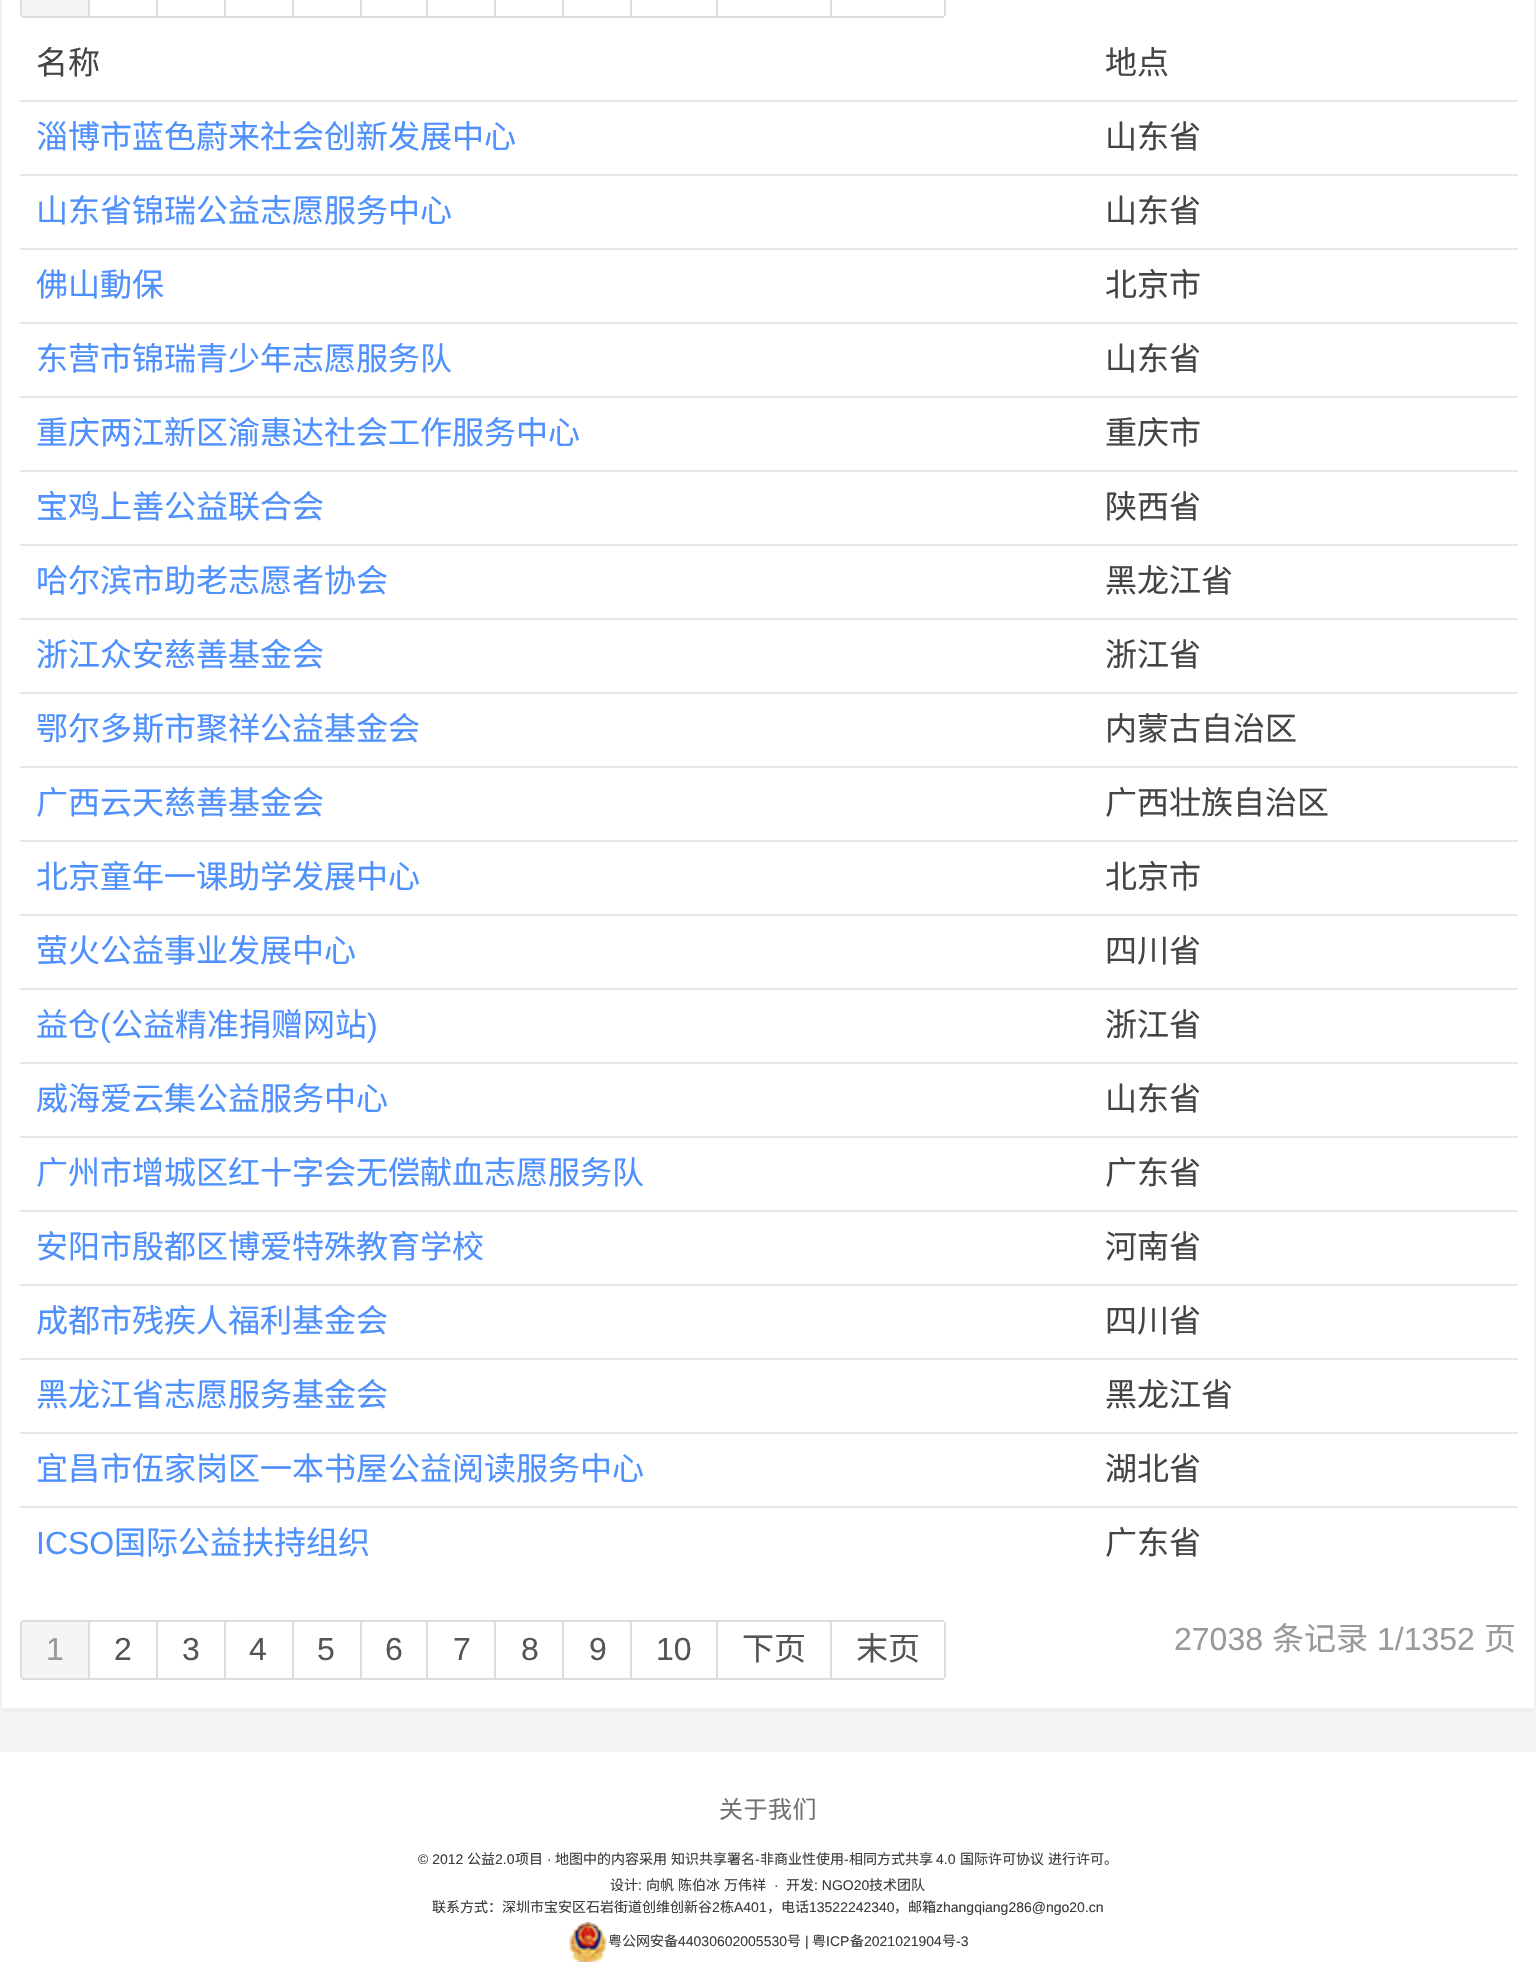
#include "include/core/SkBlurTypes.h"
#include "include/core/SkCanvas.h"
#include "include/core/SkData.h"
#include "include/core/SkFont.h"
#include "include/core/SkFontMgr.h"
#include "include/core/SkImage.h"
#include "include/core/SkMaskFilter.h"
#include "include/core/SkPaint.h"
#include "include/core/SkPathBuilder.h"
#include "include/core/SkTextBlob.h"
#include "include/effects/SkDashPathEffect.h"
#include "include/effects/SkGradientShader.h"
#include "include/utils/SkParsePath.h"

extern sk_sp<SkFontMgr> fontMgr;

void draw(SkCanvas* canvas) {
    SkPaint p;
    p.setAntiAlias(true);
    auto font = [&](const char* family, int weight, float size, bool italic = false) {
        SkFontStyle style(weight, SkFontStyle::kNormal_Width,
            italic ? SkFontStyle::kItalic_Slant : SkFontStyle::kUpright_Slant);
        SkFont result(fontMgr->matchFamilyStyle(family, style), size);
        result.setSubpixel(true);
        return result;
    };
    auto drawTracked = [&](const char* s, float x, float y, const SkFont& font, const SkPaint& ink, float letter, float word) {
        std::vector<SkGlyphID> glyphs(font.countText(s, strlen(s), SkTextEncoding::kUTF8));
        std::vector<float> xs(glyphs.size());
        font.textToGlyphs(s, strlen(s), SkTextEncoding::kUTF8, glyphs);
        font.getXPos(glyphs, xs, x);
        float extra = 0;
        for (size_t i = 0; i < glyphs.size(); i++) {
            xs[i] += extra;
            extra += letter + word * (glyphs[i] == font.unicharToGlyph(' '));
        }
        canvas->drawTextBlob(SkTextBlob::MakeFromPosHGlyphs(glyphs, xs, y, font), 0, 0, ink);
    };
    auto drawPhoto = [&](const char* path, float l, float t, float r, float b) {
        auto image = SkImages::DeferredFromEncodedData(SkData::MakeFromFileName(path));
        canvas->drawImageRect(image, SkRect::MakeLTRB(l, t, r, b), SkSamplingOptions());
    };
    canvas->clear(0xFFF5F5F5);
    p.setColor(0xFFFFFFFF);
    canvas->drawPath(SkPathBuilder().moveTo(4, -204).lineTo(1532, -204).cubicTo(1533, -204, 1534, -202, 1534, -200).lineTo(1534, 1708).lineTo(2, 1708).lineTo(2, -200).cubicTo(2, -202, 3, -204, 4, -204).close().detach(), p);
    {
        const struct { float l, t, r, b; SkColor color; } items[] = {
            {1534, 0, 1536, 1710, 0xFFEFEFEF},
            {2, 1708, 1534, 1712, 0xFFEFEFEF},
            {0, 0, 2, 1710, 0xFFEFEFEF},
        };
        for (auto [l, t, r, b, color] : items) {
            p.setColor(color);
            canvas->drawRect(SkRect::MakeLTRB(l, t, r, b), p);
        }
    }
    p.setColor(0xFFF5F5F5);
    canvas->drawPath(SkPathBuilder().moveTo(24, -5).lineTo(89, -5).lineTo(89, 17).lineTo(24, 17).cubicTo(22.5f, 17, 21, 15.5f, 21, 14).lineTo(21, -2).cubicTo(21, -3.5f, 22.5f, -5, 24, -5).close().detach(), p);
    p.setStyle(SkPaint::kStroke_Style);
    p.setStrokeWidth(2);
    p.setColor(0xFFDDDDDD);
    canvas->drawPath(SkPathBuilder().moveTo(24, -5).lineTo(89, -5).lineTo(89, 17).lineTo(24, 17).cubicTo(22.5f, 17, 21, 15.5f, 21, 14).lineTo(21, -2).cubicTo(21, -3.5f, 22.5f, -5, 24, -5).close().detach(), p);
    p.setStyle(SkPaint::kFill_Style);
    {
        const struct { float l, t, r, b; SkColor color; } items[] = {
            {156, 0, 158, 18, 0xFFDDDDDD},
            {90, 16, 158, 18, 0xFFDDDDDD},
            {224, 0, 226, 18, 0xFFDDDDDD},
            {158, 16, 226, 18, 0xFFDDDDDD},
            {292, 0, 294, 18, 0xFFDDDDDD},
            {226, 16, 294, 18, 0xFFDDDDDD},
            {360, 0, 362, 18, 0xFFDDDDDD},
            {294, 16, 362, 18, 0xFFDDDDDD},
            {426, 0, 428, 18, 0xFFDDDDDD},
            {362, 16, 428, 18, 0xFFDDDDDD},
            {494, 0, 496, 18, 0xFFDDDDDD},
            {428, 16, 496, 18, 0xFFDDDDDD},
            {562, 0, 564, 18, 0xFFDDDDDD},
            {496, 16, 564, 18, 0xFFDDDDDD},
            {630, 0, 632, 18, 0xFFDDDDDD},
            {564, 16, 632, 18, 0xFFDDDDDD},
            {716, 0, 718, 18, 0xFFDDDDDD},
            {632, 16, 718, 18, 0xFFDDDDDD},
            {830, 0, 832, 18, 0xFFDDDDDD},
            {718, 16, 944, 18, 0xFFDDDDDD},
            {944, 0, 946, 16, 0xFFDDDDDD},
        };
        for (auto [l, t, r, b, color] : items) {
            p.setColor(color);
            canvas->drawRect(SkRect::MakeLTRB(l, t, r, b), p);
        }
    }
    auto font1 = font("Noto Sans CJK SC", 400, 32);
    p.setColor(0xFF444444);
    canvas->drawString("名称", 36, 74, font1, p);
    canvas->drawString("地点", 1105, 74, font1, p);
    p.setColor(0xFF4D90FE);
    canvas->drawString("淄博市蓝色蔚来社会创新发展中心", 36, 148, font1, p);
    p.setColor(0xFFE5E5E5);
    canvas->drawRect(SkRect::MakeLTRB(20, 100, 1518, 102), p);
    p.setColor(0xFF444444);
    canvas->drawString("山东省", 1105, 148, font1, p);
    p.setColor(0xFF4D90FE);
    canvas->drawString("山东省锦瑞公益志愿服务中心", 36, 222, font1, p);
    p.setColor(0xFFE5E5E5);
    canvas->drawRect(SkRect::MakeLTRB(20, 174, 1518, 176), p);
    p.setColor(0xFF444444);
    canvas->drawString("山东省", 1105, 222, font1, p);
    p.setColor(0xFF4D90FE);
    canvas->drawString("佛山動保", 36, 296, font1, p);
    p.setColor(0xFFE5E5E5);
    canvas->drawRect(SkRect::MakeLTRB(20, 248, 1518, 250), p);
    p.setColor(0xFF444444);
    canvas->drawString("北京市", 1105, 296, font1, p);
    p.setColor(0xFF4D90FE);
    canvas->drawString("东营市锦瑞青少年志愿服务队", 36, 370, font1, p);
    p.setColor(0xFFE5E5E5);
    canvas->drawRect(SkRect::MakeLTRB(20, 322, 1518, 324), p);
    p.setColor(0xFF444444);
    canvas->drawString("山东省", 1105, 370, font1, p);
    p.setColor(0xFF4D90FE);
    canvas->drawString("重庆两江新区渝惠达社会工作服务中心", 36, 444, font1, p);
    p.setColor(0xFFE5E5E5);
    canvas->drawRect(SkRect::MakeLTRB(20, 396, 1518, 398), p);
    p.setColor(0xFF444444);
    canvas->drawString("重庆市", 1105, 444, font1, p);
    p.setColor(0xFF4D90FE);
    canvas->drawString("宝鸡上善公益联合会", 36, 518, font1, p);
    p.setColor(0xFFE5E5E5);
    canvas->drawRect(SkRect::MakeLTRB(20, 470, 1518, 472), p);
    p.setColor(0xFF444444);
    canvas->drawString("陕西省", 1105, 518, font1, p);
    p.setColor(0xFF4D90FE);
    canvas->drawString("哈尔滨市助老志愿者协会", 36, 592, font1, p);
    p.setColor(0xFFE5E5E5);
    canvas->drawRect(SkRect::MakeLTRB(20, 544, 1518, 546), p);
    p.setColor(0xFF444444);
    canvas->drawString("黑龙江省", 1105, 592, font1, p);
    p.setColor(0xFF4D90FE);
    canvas->drawString("浙江众安慈善基金会", 36, 666, font1, p);
    p.setColor(0xFFE5E5E5);
    canvas->drawRect(SkRect::MakeLTRB(20, 618, 1518, 620), p);
    p.setColor(0xFF444444);
    canvas->drawString("浙江省", 1105, 666, font1, p);
    p.setColor(0xFF4D90FE);
    canvas->drawString("鄂尔多斯市聚祥公益基金会", 36, 740, font1, p);
    p.setColor(0xFFE5E5E5);
    canvas->drawRect(SkRect::MakeLTRB(20, 692, 1518, 694), p);
    p.setColor(0xFF444444);
    canvas->drawString("内蒙古自治区", 1105, 740, font1, p);
    p.setColor(0xFF4D90FE);
    canvas->drawString("广西云天慈善基金会", 36, 814, font1, p);
    p.setColor(0xFFE5E5E5);
    canvas->drawRect(SkRect::MakeLTRB(20, 766, 1518, 768), p);
    p.setColor(0xFF444444);
    canvas->drawString("广西壮族自治区", 1105, 814, font1, p);
    p.setColor(0xFF4D90FE);
    canvas->drawString("北京童年一课助学发展中心", 36, 888, font1, p);
    p.setColor(0xFFE5E5E5);
    canvas->drawRect(SkRect::MakeLTRB(20, 840, 1518, 842), p);
    p.setColor(0xFF444444);
    canvas->drawString("北京市", 1105, 888, font1, p);
    p.setColor(0xFF4D90FE);
    canvas->drawString("萤火公益事业发展中心", 36, 962, font1, p);
    p.setColor(0xFFE5E5E5);
    canvas->drawRect(SkRect::MakeLTRB(20, 914, 1518, 916), p);
    p.setColor(0xFF444444);
    canvas->drawString("四川省", 1105, 962, font1, p);
    p.setColor(0xFF4D90FE);
    canvas->drawString("益仓", 36, 1036, font1, p);
    auto font2 = font("Liberation Sans", 400, 32);
    canvas->drawString("(", 100, 1036, font2, p);
    canvas->drawString("公益精准捐赠网站", 111, 1036, font1, p);
    canvas->drawString(")", 367, 1036, font2, p);
    p.setColor(0xFFE5E5E5);
    canvas->drawRect(SkRect::MakeLTRB(20, 988, 1518, 990), p);
    p.setColor(0xFF444444);
    canvas->drawString("浙江省", 1105, 1036, font1, p);
    p.setColor(0xFF4D90FE);
    canvas->drawString("威海爱云集公益服务中心", 36, 1110, font1, p);
    p.setColor(0xFFE5E5E5);
    canvas->drawRect(SkRect::MakeLTRB(20, 1062, 1518, 1064), p);
    p.setColor(0xFF444444);
    canvas->drawString("山东省", 1105, 1110, font1, p);
    p.setColor(0xFF4D90FE);
    canvas->drawString("广州市增城区红十字会无偿献血志愿服务队", 36, 1184, font1, p);
    p.setColor(0xFFE5E5E5);
    canvas->drawRect(SkRect::MakeLTRB(20, 1136, 1518, 1138), p);
    p.setColor(0xFF444444);
    canvas->drawString("广东省", 1105, 1184, font1, p);
    p.setColor(0xFF4D90FE);
    canvas->drawString("安阳市殷都区博爱特殊教育学校", 36, 1258, font1, p);
    p.setColor(0xFFE5E5E5);
    canvas->drawRect(SkRect::MakeLTRB(20, 1210, 1518, 1212), p);
    p.setColor(0xFF444444);
    canvas->drawString("河南省", 1105, 1258, font1, p);
    p.setColor(0xFF4D90FE);
    canvas->drawString("成都市残疾人福利基金会", 36, 1332, font1, p);
    p.setColor(0xFFE5E5E5);
    canvas->drawRect(SkRect::MakeLTRB(20, 1284, 1518, 1286), p);
    p.setColor(0xFF444444);
    canvas->drawString("四川省", 1105, 1332, font1, p);
    p.setColor(0xFF4D90FE);
    canvas->drawString("黑龙江省志愿服务基金会", 36, 1406, font1, p);
    p.setColor(0xFFE5E5E5);
    canvas->drawRect(SkRect::MakeLTRB(20, 1358, 1518, 1360), p);
    p.setColor(0xFF444444);
    canvas->drawString("黑龙江省", 1105, 1406, font1, p);
    p.setColor(0xFF4D90FE);
    canvas->drawString("宜昌市伍家岗区一本书屋公益阅读服务中心", 36, 1480, font1, p);
    p.setColor(0xFFE5E5E5);
    canvas->drawRect(SkRect::MakeLTRB(20, 1432, 1518, 1434), p);
    p.setColor(0xFF444444);
    canvas->drawString("湖北省", 1105, 1480, font1, p);
    p.setColor(0xFF4D90FE);
    canvas->drawString("ICSO", 36, 1554, font2, p);
    canvas->drawString("国际公益扶持组织", 114, 1554, font1, p);
    p.setColor(0xFFE5E5E5);
    canvas->drawRect(SkRect::MakeLTRB(20, 1506, 1518, 1508), p);
    p.setColor(0xFF444444);
    canvas->drawString("广东省", 1105, 1554, font1, p);
    p.setColor(0xFFF5F5F5);
    canvas->drawPath(SkPathBuilder().moveTo(24, 1621).lineTo(89, 1621).lineTo(89, 1679).lineTo(24, 1679).cubicTo(22.5f, 1679, 21, 1677.5f, 21, 1676).lineTo(21, 1624).cubicTo(21, 1622.5f, 22.5f, 1621, 24, 1621).close().detach(), p);
    p.setStyle(SkPaint::kStroke_Style);
    p.setColor(0xFFDDDDDD);
    canvas->drawPath(SkPathBuilder().moveTo(24, 1621).lineTo(89, 1621).lineTo(89, 1679).lineTo(24, 1679).cubicTo(22.5f, 1679, 21, 1677.5f, 21, 1676).lineTo(21, 1624).cubicTo(21, 1622.5f, 22.5f, 1621, 24, 1621).close().detach(), p);
    p.setStyle(SkPaint::kFill_Style);
    p.setColor(0xFF999999);
    canvas->drawString("1", 46, 1660, font2, p);
    {
        const struct { float l, t, r, b; SkColor color; } items[] = {
            {90, 1620, 944, 1622, 0xFFDDDDDD},
            {156, 1620, 158, 1680, 0xFFDDDDDD},
            {90, 1678, 158, 1680, 0xFFDDDDDD},
        };
        for (auto [l, t, r, b, color] : items) {
            p.setColor(color);
            canvas->drawRect(SkRect::MakeLTRB(l, t, r, b), p);
        }
    }
    p.setColor(0xFF555555);
    canvas->drawString("2", 114, 1660, font2, p);
    p.setColor(0xFFDDDDDD);
    canvas->drawRect(SkRect::MakeLTRB(224, 1620, 226, 1680), p);
    canvas->drawRect(SkRect::MakeLTRB(158, 1678, 226, 1680), p);
    p.setColor(0xFF555555);
    canvas->drawString("3", 182, 1660, font2, p);
    p.setColor(0xFFDDDDDD);
    canvas->drawRect(SkRect::MakeLTRB(292, 1620, 294, 1680), p);
    canvas->drawRect(SkRect::MakeLTRB(226, 1678, 294, 1680), p);
    p.setColor(0xFF555555);
    canvas->drawString("4", 249, 1660, font2, p);
    p.setColor(0xFFDDDDDD);
    canvas->drawRect(SkRect::MakeLTRB(360, 1620, 362, 1680), p);
    canvas->drawRect(SkRect::MakeLTRB(294, 1678, 362, 1680), p);
    p.setColor(0xFF555555);
    canvas->drawString("5", 317, 1660, font2, p);
    p.setColor(0xFFDDDDDD);
    canvas->drawRect(SkRect::MakeLTRB(426, 1620, 428, 1680), p);
    canvas->drawRect(SkRect::MakeLTRB(362, 1678, 428, 1680), p);
    p.setColor(0xFF555555);
    canvas->drawString("6", 385, 1660, font2, p);
    p.setColor(0xFFDDDDDD);
    canvas->drawRect(SkRect::MakeLTRB(494, 1620, 496, 1680), p);
    canvas->drawRect(SkRect::MakeLTRB(428, 1678, 496, 1680), p);
    p.setColor(0xFF555555);
    canvas->drawString("7", 453, 1660, font2, p);
    p.setColor(0xFFDDDDDD);
    canvas->drawRect(SkRect::MakeLTRB(562, 1620, 564, 1680), p);
    canvas->drawRect(SkRect::MakeLTRB(496, 1678, 564, 1680), p);
    p.setColor(0xFF555555);
    canvas->drawString("8", 521, 1660, font2, p);
    p.setColor(0xFFDDDDDD);
    canvas->drawRect(SkRect::MakeLTRB(630, 1620, 632, 1680), p);
    canvas->drawRect(SkRect::MakeLTRB(564, 1678, 632, 1680), p);
    p.setColor(0xFF555555);
    canvas->drawString("9", 589, 1660, font2, p);
    p.setColor(0xFFDDDDDD);
    canvas->drawRect(SkRect::MakeLTRB(716, 1620, 718, 1680), p);
    canvas->drawRect(SkRect::MakeLTRB(632, 1678, 718, 1680), p);
    p.setColor(0xFF555555);
    canvas->drawString("10", 656, 1660, font2, p);
    p.setColor(0xFFDDDDDD);
    canvas->drawRect(SkRect::MakeLTRB(830, 1620, 832, 1680), p);
    canvas->drawRect(SkRect::MakeLTRB(718, 1678, 944, 1680), p);
    p.setColor(0xFF555555);
    canvas->drawString("下页", 742, 1660, font1, p);
    p.setColor(0xFFDDDDDD);
    canvas->drawRect(SkRect::MakeLTRB(944, 1622, 946, 1678), p);
    p.setColor(0xFF555555);
    canvas->drawString("末页", 856, 1660, font1, p);
    p.setColor(0xFF999999);
    canvas->drawString("27038", 1174, 1650, font2, p);
    canvas->drawString("条记录", 1272, 1650, font1, p);
    canvas->drawString("1/1352", 1377, 1650, font2, p);
    canvas->drawString("页", 1484, 1650, font1, p);
    p.setColor(0xFFFFFFFF);
    canvas->drawRect(SkRect::MakeLTRB(0, 1752, 1536, 1983), p);
    auto font3 = font("Noto Sans CJK SC", 400, 24);
    p.setColor(0xFF707374);
    drawTracked("关于我们", 719, 1818, font3, p, 0.5f, 0);
    auto font4 = font("Liberation Sans", 400, 14);
    p.setColor(0xFF393C3D);
    canvas->drawString("© 2012", 418, 1864, font4, p);
    auto font5 = font("Noto Sans CJK SC", 400, 14);
    canvas->drawString("公益", 467, 1864, font5, p);
    canvas->drawString("2.0", 495, 1864, font4, p);
    canvas->drawString("项目", 515, 1864, font5, p);
    canvas->drawString("·", 547, 1864, font4, p);
    canvas->drawString("地图中的内容采用", 555, 1864, font5, p);
    canvas->drawString("知识共享署名", 671, 1864, font5, p);
    canvas->drawString("-", 755, 1864, font4, p);
    canvas->drawString("非商业性使用", 760, 1864, font5, p);
    canvas->drawString("-", 844, 1864, font4, p);
    canvas->drawString("相同方式共享", 849, 1864, font5, p);
    canvas->drawString("4.0", 936, 1864, font4, p);
    {
        const struct { const char* s; float x, y; } items[] = {
            {"国际许可协议", 960, 1864},
            {"进行许可。", 1048, 1864},
            {"设计", 610, 1890},
        };
        for (auto [s, x, y] : items) {
            canvas->drawString(s, x, y, font5, p);
        }
    }
    canvas->drawString(":", 638, 1890, font4, p);
    {
        const struct { const char* s; float x, y; } items[] = {
            {"向帆", 646, 1890},
            {"陈伯冰", 678, 1890},
            {"万伟祥", 724, 1890},
        };
        for (auto [s, x, y] : items) {
            canvas->drawString(s, x, y, font5, p);
        }
    }
    canvas->drawString("·", 774, 1890, font4, p);
    canvas->drawString("开发", 786, 1890, font5, p);
    canvas->drawString(": NGO20", 814, 1890, font4, p);
    canvas->drawString("技术团队", 869, 1890, font5, p);
    canvas->drawString("联系方式：深圳市宝安区石岩街道创维创新谷", 432, 1912, font5, p);
    canvas->drawString("2", 712, 1912, font4, p);
    canvas->drawString("栋", 720, 1912, font5, p);
    canvas->drawString("A401", 734, 1912, font4, p);
    canvas->drawString("，电话", 767, 1912, font5, p);
    canvas->drawString("13522242340", 809, 1912, font4, p);
    canvas->drawString("，邮箱", 894, 1912, font5, p);
    canvas->drawString("zhangqiang286@ngo20.cn", 936, 1912, font4, p);
    drawPhoto("media/1.png", 569, 1922, 607, 1962);
    canvas->drawString("粤公网安备", 608, 1946, font5, p);
    canvas->drawString("44030602005530", 678, 1946, font4, p);
    canvas->drawString("号", 787, 1946, font5, p);
    canvas->drawString("|", 805, 1946, font4, p);
    canvas->drawString("粤", 812, 1946, font5, p);
    canvas->drawString("ICP", 826, 1946, font4, p);
    canvas->drawString("备", 850, 1946, font5, p);
    canvas->drawString("2021021904", 864, 1946, font4, p);
    canvas->drawString("号", 942, 1946, font5, p);
    canvas->drawString("-3", 956, 1946, font4, p);
}
